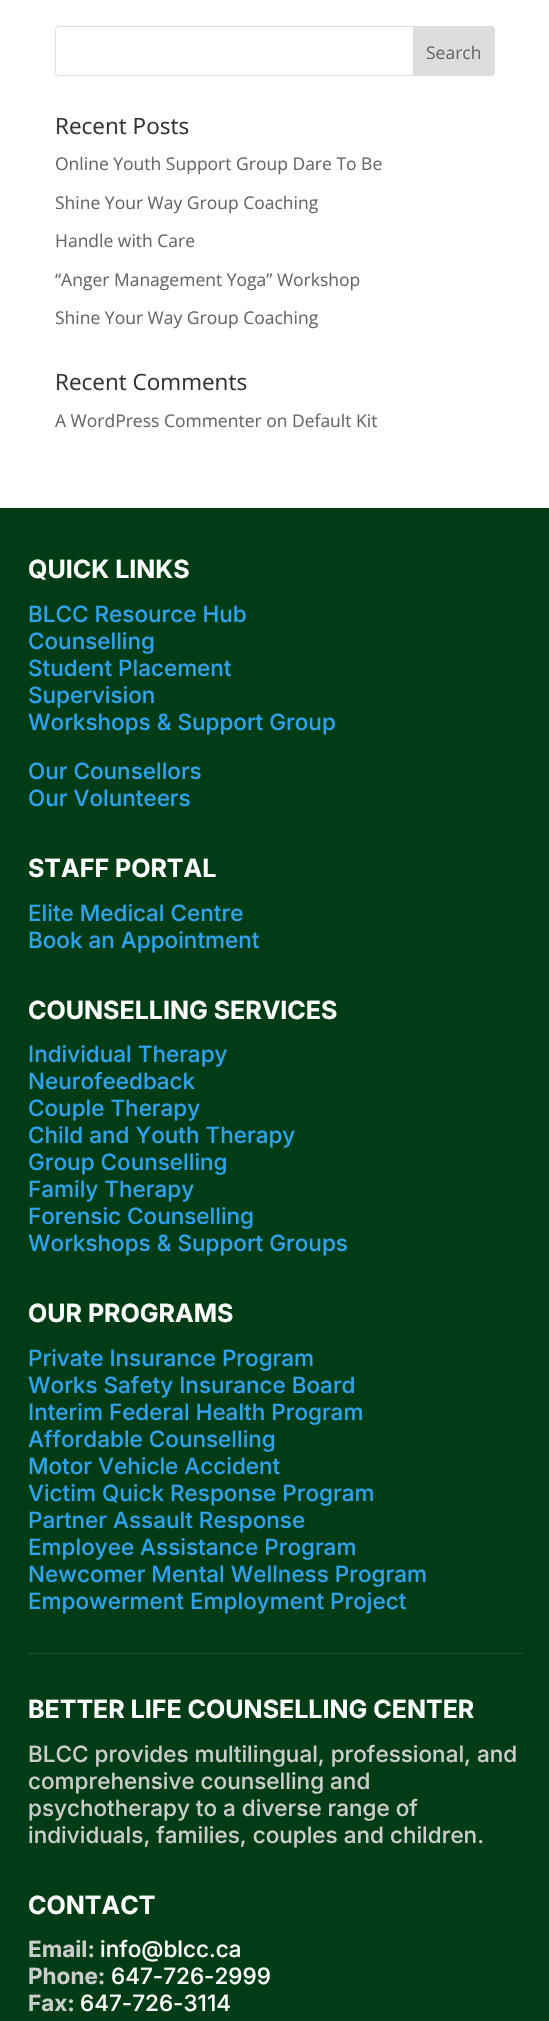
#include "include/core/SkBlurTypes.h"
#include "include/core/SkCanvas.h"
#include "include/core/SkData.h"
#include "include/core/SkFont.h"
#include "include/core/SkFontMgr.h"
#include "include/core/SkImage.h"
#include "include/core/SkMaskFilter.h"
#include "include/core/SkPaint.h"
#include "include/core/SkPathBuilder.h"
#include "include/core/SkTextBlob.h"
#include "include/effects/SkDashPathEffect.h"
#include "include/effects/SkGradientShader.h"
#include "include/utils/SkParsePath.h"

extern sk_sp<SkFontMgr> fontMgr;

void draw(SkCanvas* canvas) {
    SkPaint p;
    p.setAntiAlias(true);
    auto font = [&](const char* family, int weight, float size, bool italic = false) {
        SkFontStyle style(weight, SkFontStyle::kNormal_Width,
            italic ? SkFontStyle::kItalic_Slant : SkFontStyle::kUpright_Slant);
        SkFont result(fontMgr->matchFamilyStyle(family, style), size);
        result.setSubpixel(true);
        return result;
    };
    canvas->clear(0xFFFFFFFF);
    p.setStyle(SkPaint::kStroke_Style);
    p.setStrokeWidth(1);
    p.setColor(0xFFDDDDDD);
    canvas->drawRoundRect(SkRect::MakeLTRB(55.5f, 26.5f, 494.5f, 75.5f), 3.5f, 3.5f, p);
    p.setStyle(SkPaint::kFill_Style);
    canvas->drawPath(SkPathBuilder().moveTo(413.5f, 26.5f).lineTo(491, 26.5f).cubicTo(493, 26.5f, 494.5f, 28, 494.5f, 30).lineTo(494.5f, 72).cubicTo(494.5f, 74, 493, 75.5f, 491, 75.5f).lineTo(413.5f, 75.5f).close().detach(), p);
    p.setStyle(SkPaint::kStroke_Style);
    canvas->drawPath(SkPathBuilder().moveTo(413.5f, 26.5f).lineTo(491, 26.5f).cubicTo(493, 26.5f, 494.5f, 28, 494.5f, 30).lineTo(494.5f, 72).cubicTo(494.5f, 74, 493, 75.5f, 491, 75.5f).lineTo(413.5f, 75.5f).close().detach(), p);
    auto font1 = font("Open Sans", 400, 17.5f);
    p.setStyle(SkPaint::kFill_Style);
    p.setColor(0xFF666666);
    canvas->drawString("Search", 426, 59, font1, p);
    auto font2 = font("Open Sans", 400, 22.5f);
    p.setColor(0xFF333333);
    canvas->drawString("Recent Posts", 55, 134, font2, p);
    p.setColor(0xFF666666);
    {
        const struct { const char* s; float x, y; } items[] = {
            {"Online Youth Support Group Dare To Be", 55, 170},
            {"Shine Your Way Group Coaching", 55, 209},
            {"Handle with Care", 55, 247},
            {"“Anger Management Yoga” Workshop", 55, 286},
            {"Shine Your Way Group Coaching", 55, 324},
        };
        for (auto [s, x, y] : items) {
            canvas->drawString(s, x, y, font1, p);
        }
    }
    p.setColor(0xFF333333);
    canvas->drawString("Recent Comments", 55, 390, font2, p);
    p.setColor(0xFF666666);
    canvas->drawString("A WordPress Commenter on Default Kit", 55, 427, font1, p);
    p.setColor(0xFF003D16);
    canvas->drawRect(SkRect::MakeLTRB(0, 508, 549, 2021), p);
    p.setColor(0xFF1F5432);
    canvas->drawRect(SkRect::MakeLTRB(28, 1653, 523, 1654), p);
    auto font3 = font("Inter", 700, 25);
    p.setColor(0xFFFFFFFF);
    canvas->drawString("QUICK LINKS", 28, 578, font3, p);
    auto font4 = font("Inter", 500, 22.5f);
    p.setColor(0xFF2EA3F2);
    {
        const struct { const char* s; float x, y; } items[] = {
            {"BLCC Resource Hub", 28, 622},
            {"Counselling", 28, 649},
            {"Student Placement", 28, 676},
            {"Supervision", 28, 703},
            {"Workshops & Support Group", 28, 730},
            {"Our Counsellors", 28, 779},
            {"Our Volunteers", 28, 806},
        };
        for (auto [s, x, y] : items) {
            canvas->drawString(s, x, y, font4, p);
        }
    }
    p.setColor(0xFFFFFFFF);
    canvas->drawString("STAFF PORTAL", 28, 877, font3, p);
    p.setColor(0xFF2EA3F2);
    canvas->drawString("Elite Medical Centre", 28, 921, font4, p);
    canvas->drawString("Book an Appointment", 28, 948, font4, p);
    p.setColor(0xFFFFFFFF);
    canvas->drawString("COUNSELLING SERVICES", 28, 1019, font3, p);
    p.setColor(0xFF2EA3F2);
    {
        const struct { const char* s; float x, y; } items[] = {
            {"Individual Therapy", 28, 1062},
            {"Neurofeedback", 28, 1089},
            {"Couple Therapy", 28, 1116},
            {"Child and Youth Therapy", 28, 1143},
            {"Group Counselling", 28, 1170},
            {"Family Therapy", 28, 1197},
            {"Forensic Counselling", 28, 1224},
            {"Workshops & Support Groups", 28, 1251},
        };
        for (auto [s, x, y] : items) {
            canvas->drawString(s, x, y, font4, p);
        }
    }
    p.setColor(0xFFFFFFFF);
    canvas->drawString("OUR PROGRAMS", 28, 1322, font3, p);
    p.setColor(0xFF2EA3F2);
    {
        const struct { const char* s; float x, y; } items[] = {
            {"Private Insurance Program", 28, 1366},
            {"Works Safety Insurance Board", 28, 1393},
            {"Interim Federal Health Program", 28, 1420},
            {"Affordable Counselling", 28, 1447},
            {"Motor Vehicle Accident", 28, 1474},
            {"Victim Quick Response Program", 28, 1501},
            {"Partner Assault Response", 28, 1528},
            {"Employee Assistance Program", 28, 1555},
            {"Newcomer Mental Wellness Program", 28, 1582},
            {"Empowerment Employment Project", 28, 1609},
        };
        for (auto [s, x, y] : items) {
            canvas->drawString(s, x, y, font4, p);
        }
    }
    p.setColor(0xFFFFFFFF);
    canvas->drawString("BETTER LIFE COUNSELLING CENTER", 28, 1718, font3, p);
    p.setColor(0xFFCCCCCC);
    {
        const struct { const char* s; float x, y; } items[] = {
            {"BLCC provides multilingual, professional, and", 28, 1762},
            {"comprehensive counselling and", 28, 1789},
            {"psychotherapy to a diverse range of", 28, 1816},
            {"individuals, families, couples and children.", 28, 1843},
        };
        for (auto [s, x, y] : items) {
            canvas->drawString(s, x, y, font4, p);
        }
    }
    p.setColor(0xFFFFFFFF);
    canvas->drawString("CONTACT", 28, 1914, font3, p);
    auto font5 = font("Inter", 700, 22.5f);
    p.setColor(0xFFCCCCCC);
    canvas->drawString("Email:", 28, 1957, font5, p);
    p.setColor(0xFFFFFFFF);
    canvas->drawString("info@blcc.ca", 100, 1957, font4, p);
    p.setColor(0xFFCCCCCC);
    canvas->drawString("Phone:", 28, 1984, font5, p);
    p.setColor(0xFFFFFFFF);
    canvas->drawString("647-726-2999", 111, 1984, font4, p);
    p.setColor(0xFFCCCCCC);
    canvas->drawString("Fax:", 28, 2011, font5, p);
    p.setColor(0xFFFFFFFF);
    canvas->drawString("647-726-3114", 80, 2011, font4, p);
}
